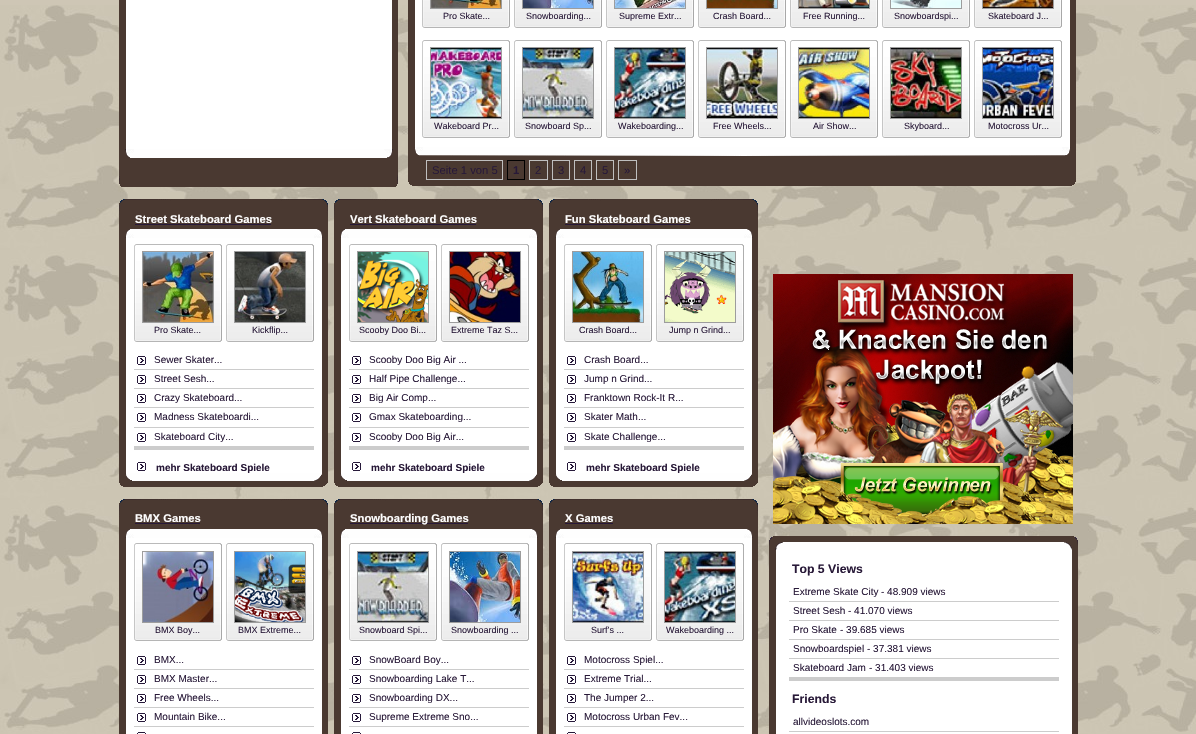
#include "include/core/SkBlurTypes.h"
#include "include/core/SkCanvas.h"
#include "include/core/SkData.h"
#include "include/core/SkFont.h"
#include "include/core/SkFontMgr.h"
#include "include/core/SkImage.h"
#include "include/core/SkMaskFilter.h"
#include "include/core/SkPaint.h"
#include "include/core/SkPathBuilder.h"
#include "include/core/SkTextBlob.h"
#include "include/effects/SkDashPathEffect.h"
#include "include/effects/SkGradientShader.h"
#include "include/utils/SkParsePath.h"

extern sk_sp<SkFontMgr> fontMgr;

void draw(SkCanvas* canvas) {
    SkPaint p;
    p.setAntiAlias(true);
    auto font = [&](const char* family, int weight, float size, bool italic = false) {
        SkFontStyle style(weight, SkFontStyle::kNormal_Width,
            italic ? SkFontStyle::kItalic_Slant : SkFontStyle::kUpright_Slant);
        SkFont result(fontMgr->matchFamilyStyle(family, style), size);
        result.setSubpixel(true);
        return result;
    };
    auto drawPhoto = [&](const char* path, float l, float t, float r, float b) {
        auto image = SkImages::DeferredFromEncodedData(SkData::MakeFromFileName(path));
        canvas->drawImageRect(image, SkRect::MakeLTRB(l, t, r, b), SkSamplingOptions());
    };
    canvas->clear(0xFFCEC6B5);
    drawPhoto("media/1.png", 0, 5, 1196, 734);
    drawPhoto("media/2.png", 119, 0, 398, 149);
    drawPhoto("media/3.png", 119, 149, 398, 187);
    drawPhoto("media/4.png", 408, 0, 1076, 147);
    drawPhoto("media/5.png", 422, 0, 510, 28);
    p.setStyle(SkPaint::kStroke_Style);
    p.setStrokeWidth(1);
    p.setColor(0xFF9D9D9D);
    canvas->drawRect(SkRect::MakeLTRB(430.5f, -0.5f, 501.5f, 8.5f), p);
    drawPhoto("media/6.png", 431, 0, 501, 8);
    auto font1 = font("Liberation Sans", 400, 9);
    p.setStyle(SkPaint::kFill_Style);
    p.setColor(0xFF281938);
    canvas->drawString("Pro Skate...", 443, 19, font1, p);
    drawPhoto("media/5.png", 514, 0, 602, 28);
    p.setStyle(SkPaint::kStroke_Style);
    p.setColor(0xFF9D9D9D);
    canvas->drawRect(SkRect::MakeLTRB(522.5f, -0.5f, 593.5f, 8.5f), p);
    drawPhoto("media/7.png", 523, 0, 593, 8);
    p.setStyle(SkPaint::kFill_Style);
    p.setColor(0xFF281938);
    canvas->drawString("Snowboarding...", 526, 19, font1, p);
    drawPhoto("media/5.png", 606, 0, 694, 28);
    p.setStyle(SkPaint::kStroke_Style);
    p.setColor(0xFF9D9D9D);
    canvas->drawRect(SkRect::MakeLTRB(614.5f, -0.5f, 685.5f, 8.5f), p);
    drawPhoto("media/8.png", 615, 0, 685, 8);
    p.setStyle(SkPaint::kFill_Style);
    p.setColor(0xFF281938);
    canvas->drawString("Supreme Extr...", 619, 19, font1, p);
    drawPhoto("media/5.png", 698, 0, 786, 28);
    p.setStyle(SkPaint::kStroke_Style);
    p.setColor(0xFF9D9D9D);
    canvas->drawRect(SkRect::MakeLTRB(706.5f, -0.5f, 777.5f, 8.5f), p);
    drawPhoto("media/9.png", 707, 0, 777, 8);
    p.setStyle(SkPaint::kFill_Style);
    p.setColor(0xFF281938);
    canvas->drawString("Crash Board...", 713, 19, font1, p);
    drawPhoto("media/5.png", 790, 0, 878, 28);
    p.setStyle(SkPaint::kStroke_Style);
    p.setColor(0xFF9D9D9D);
    canvas->drawRect(SkRect::MakeLTRB(798.5f, -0.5f, 869.5f, 8.5f), p);
    drawPhoto("media/10.png", 799, 0, 869, 8);
    p.setStyle(SkPaint::kFill_Style);
    p.setColor(0xFF281938);
    canvas->drawString("Free Running...", 803, 19, font1, p);
    drawPhoto("media/5.png", 882, 0, 970, 28);
    p.setStyle(SkPaint::kStroke_Style);
    p.setColor(0xFF9D9D9D);
    canvas->drawRect(SkRect::MakeLTRB(890.5f, -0.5f, 961.5f, 8.5f), p);
    drawPhoto("media/11.png", 891, 0, 961, 8);
    p.setStyle(SkPaint::kFill_Style);
    p.setColor(0xFF281938);
    canvas->drawString("Snowboardspi...", 894, 19, font1, p);
    drawPhoto("media/5.png", 974, 0, 1062, 28);
    p.setStyle(SkPaint::kStroke_Style);
    p.setColor(0xFF9D9D9D);
    canvas->drawRect(SkRect::MakeLTRB(982.5f, -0.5f, 1053.5f, 8.5f), p);
    drawPhoto("media/12.png", 983, 0, 1053, 8);
    p.setStyle(SkPaint::kFill_Style);
    p.setColor(0xFF281938);
    canvas->drawString("Skateboard J...", 988, 19, font1, p);
    drawPhoto("media/13.png", 422, 40, 510, 138);
    p.setStyle(SkPaint::kStroke_Style);
    p.setColor(0xFF9D9D9D);
    canvas->drawRect(SkRect::MakeLTRB(430.5f, 47.5f, 501.5f, 118.5f), p);
    drawPhoto("media/14.png", 431, 48, 501, 118);
    p.setStyle(SkPaint::kFill_Style);
    p.setColor(0xFF281938);
    canvas->drawString("Wakeboard Pr...", 434, 129, font1, p);
    drawPhoto("media/13.png", 514, 40, 602, 138);
    p.setStyle(SkPaint::kStroke_Style);
    p.setColor(0xFF9D9D9D);
    canvas->drawRect(SkRect::MakeLTRB(522.5f, 47.5f, 593.5f, 118.5f), p);
    drawPhoto("media/15.png", 523, 48, 593, 118);
    p.setStyle(SkPaint::kFill_Style);
    p.setColor(0xFF281938);
    canvas->drawString("Snowboard Sp...", 525, 129, font1, p);
    drawPhoto("media/13.png", 606, 40, 694, 138);
    p.setStyle(SkPaint::kStroke_Style);
    p.setColor(0xFF9D9D9D);
    canvas->drawRect(SkRect::MakeLTRB(614.5f, 47.5f, 685.5f, 118.5f), p);
    drawPhoto("media/16.png", 615, 48, 685, 118);
    p.setStyle(SkPaint::kFill_Style);
    p.setColor(0xFF281938);
    canvas->drawString("Wakeboarding...", 618, 129, font1, p);
    drawPhoto("media/13.png", 698, 40, 786, 138);
    p.setStyle(SkPaint::kStroke_Style);
    p.setColor(0xFF9D9D9D);
    canvas->drawRect(SkRect::MakeLTRB(706.5f, 47.5f, 777.5f, 118.5f), p);
    drawPhoto("media/17.png", 707, 48, 777, 118);
    p.setStyle(SkPaint::kFill_Style);
    p.setColor(0xFF281938);
    canvas->drawString("Free Wheels...", 713, 129, font1, p);
    drawPhoto("media/13.png", 790, 40, 878, 138);
    p.setStyle(SkPaint::kStroke_Style);
    p.setColor(0xFF9D9D9D);
    canvas->drawRect(SkRect::MakeLTRB(798.5f, 47.5f, 869.5f, 118.5f), p);
    drawPhoto("media/18.png", 799, 48, 869, 118);
    p.setStyle(SkPaint::kFill_Style);
    p.setColor(0xFF281938);
    canvas->drawString("Air Show...", 813, 129, font1, p);
    drawPhoto("media/13.png", 882, 40, 970, 138);
    p.setStyle(SkPaint::kStroke_Style);
    p.setColor(0xFF9D9D9D);
    canvas->drawRect(SkRect::MakeLTRB(890.5f, 47.5f, 961.5f, 118.5f), p);
    drawPhoto("media/19.png", 891, 48, 961, 118);
    p.setStyle(SkPaint::kFill_Style);
    p.setColor(0xFF281938);
    canvas->drawString("Skyboard...", 904, 129, font1, p);
    drawPhoto("media/13.png", 974, 40, 1062, 138);
    p.setStyle(SkPaint::kStroke_Style);
    p.setColor(0xFF9D9D9D);
    canvas->drawRect(SkRect::MakeLTRB(982.5f, 47.5f, 1053.5f, 118.5f), p);
    drawPhoto("media/20.png", 983, 48, 1053, 118);
    p.setStyle(SkPaint::kFill_Style);
    p.setColor(0xFF281938);
    canvas->drawString("Motocross Ur...", 988, 129, font1, p);
    drawPhoto("media/21.png", 408, 147, 1076, 186);
    p.setStyle(SkPaint::kStroke_Style);
    p.setColor(0xFFBFBFBF);
    canvas->drawRect(SkRect::MakeLTRB(426.5f, 160.5f, 502.5f, 179.5f), p);
    auto font2 = font("Liberation Sans", 400, 11.25f);
    p.setStyle(SkPaint::kFill_Style);
    p.setColor(0xFF281938);
    canvas->drawString("Seite 1 von 5", 432, 174, font2, p);
    p.setStyle(SkPaint::kStroke_Style);
    p.setColor(0xFF000000);
    canvas->drawRect(SkRect::MakeLTRB(507.5f, 160.5f, 524.5f, 179.5f), p);
    auto font3 = font("Liberation Sans", 700, 11.25f);
    p.setStyle(SkPaint::kFill_Style);
    p.setColor(0xFF281938);
    canvas->drawString("1", 513, 174, font3, p);
    p.setStyle(SkPaint::kStroke_Style);
    p.setColor(0xFFBFBFBF);
    canvas->drawRect(SkRect::MakeLTRB(529.5f, 160.5f, 547.5f, 179.5f), p);
    p.setStyle(SkPaint::kFill_Style);
    p.setColor(0xFF281938);
    canvas->drawString("2", 535, 174, font2, p);
    p.setStyle(SkPaint::kStroke_Style);
    p.setColor(0xFFBFBFBF);
    canvas->drawRect(SkRect::MakeLTRB(552.5f, 160.5f, 569.5f, 179.5f), p);
    p.setStyle(SkPaint::kFill_Style);
    p.setColor(0xFF281938);
    canvas->drawString("3", 558, 174, font2, p);
    p.setStyle(SkPaint::kStroke_Style);
    p.setColor(0xFFBFBFBF);
    canvas->drawRect(SkRect::MakeLTRB(574.5f, 160.5f, 591.5f, 179.5f), p);
    p.setStyle(SkPaint::kFill_Style);
    p.setColor(0xFF281938);
    canvas->drawString("4", 580, 174, font2, p);
    p.setStyle(SkPaint::kStroke_Style);
    p.setColor(0xFFBFBFBF);
    canvas->drawRect(SkRect::MakeLTRB(596.5f, 160.5f, 613.5f, 179.5f), p);
    p.setStyle(SkPaint::kFill_Style);
    p.setColor(0xFF281938);
    canvas->drawString("5", 602, 174, font2, p);
    p.setStyle(SkPaint::kStroke_Style);
    p.setColor(0xFFBFBFBF);
    canvas->drawRect(SkRect::MakeLTRB(618.5f, 160.5f, 636.5f, 179.5f), p);
    p.setStyle(SkPaint::kFill_Style);
    p.setColor(0xFF281938);
    canvas->drawString("»", 624, 174, font2, p);
    drawPhoto("media/22.png", 119, 199, 328, 238);
    p.setColor(0xFFFFFFFF);
    canvas->drawString("Street Skateboard Games", 135, 223, font3, p);
    p.setColor(0xFF281938);
    canvas->drawRect(SkRect::MakeLTRB(135, 224, 271, 225), p);
    drawPhoto("media/23.png", 119, 238, 328, 473);
    drawPhoto("media/13.png", 134, 244, 222, 342);
    p.setStyle(SkPaint::kStroke_Style);
    p.setColor(0xFF9D9D9D);
    canvas->drawRect(SkRect::MakeLTRB(142.5f, 251.5f, 213.5f, 322.5f), p);
    drawPhoto("media/24.png", 143, 252, 213, 322);
    p.setStyle(SkPaint::kFill_Style);
    p.setColor(0xFF281938);
    canvas->drawString("Pro Skate...", 154, 333, font1, p);
    drawPhoto("media/13.png", 226, 244, 314, 342);
    p.setStyle(SkPaint::kStroke_Style);
    p.setColor(0xFF9D9D9D);
    canvas->drawRect(SkRect::MakeLTRB(234.5f, 251.5f, 305.5f, 322.5f), p);
    drawPhoto("media/25.png", 235, 252, 305, 322);
    p.setStyle(SkPaint::kFill_Style);
    p.setColor(0xFF281938);
    canvas->drawString("Kickflip...", 252, 333, font1, p);
    p.setColor(0xFFCCCCCC);
    canvas->drawRect(SkRect::MakeLTRB(134, 446, 314, 450), p);
    drawPhoto("media/26.png", 137, 356, 146, 365);
    canvas->drawRect(SkRect::MakeLTRB(134, 369, 314, 370), p);
    auto font4 = font("Liberation Sans", 400, 10);
    p.setColor(0xFF281938);
    canvas->drawString("Sewer Skater...", 154, 363, font4, p);
    drawPhoto("media/26.png", 137, 375, 146, 384);
    p.setColor(0xFFCCCCCC);
    canvas->drawRect(SkRect::MakeLTRB(134, 388, 314, 389), p);
    p.setColor(0xFF281938);
    canvas->drawString("Street Sesh...", 154, 382, font4, p);
    drawPhoto("media/26.png", 137, 394, 146, 403);
    p.setColor(0xFFCCCCCC);
    canvas->drawRect(SkRect::MakeLTRB(134, 407, 314, 408), p);
    p.setColor(0xFF281938);
    canvas->drawString("Crazy Skateboard...", 154, 401, font4, p);
    drawPhoto("media/26.png", 137, 413, 146, 422);
    p.setColor(0xFFCCCCCC);
    canvas->drawRect(SkRect::MakeLTRB(134, 427, 314, 428), p);
    p.setColor(0xFF281938);
    canvas->drawString("Madness Skateboardi...", 154, 420, font4, p);
    drawPhoto("media/26.png", 137, 433, 146, 442);
    canvas->drawString("Skateboard City...", 154, 440, font4, p);
    drawPhoto("media/26.png", 137, 462, 146, 471);
    drawPhoto("media/27.png", 119, 473, 328, 487);
    auto font5 = font("Liberation Sans", 700, 10);
    canvas->drawString("mehr Skateboard Spiele", 156, 471, font5, p);
    drawPhoto("media/28.png", 334, 199, 543, 238);
    p.setColor(0xFFFFFFFF);
    canvas->drawString("Vert Skateboard Games", 350, 223, font3, p);
    p.setColor(0xFF281938);
    canvas->drawRect(SkRect::MakeLTRB(350, 224, 476, 225), p);
    drawPhoto("media/23.png", 334, 238, 543, 473);
    drawPhoto("media/13.png", 349, 244, 437, 342);
    p.setStyle(SkPaint::kStroke_Style);
    p.setColor(0xFF9D9D9D);
    canvas->drawRect(SkRect::MakeLTRB(357.5f, 251.5f, 428.5f, 322.5f), p);
    drawPhoto("media/29.png", 358, 252, 428, 322);
    p.setStyle(SkPaint::kFill_Style);
    p.setColor(0xFF281938);
    canvas->drawString("Scooby Doo Bi...", 359, 333, font1, p);
    drawPhoto("media/13.png", 441, 244, 529, 342);
    p.setStyle(SkPaint::kStroke_Style);
    p.setColor(0xFF9D9D9D);
    canvas->drawRect(SkRect::MakeLTRB(449.5f, 251.5f, 520.5f, 322.5f), p);
    drawPhoto("media/30.png", 450, 252, 520, 322);
    p.setStyle(SkPaint::kFill_Style);
    p.setColor(0xFF281938);
    canvas->drawString("Extreme Taz S...", 451, 333, font1, p);
    p.setColor(0xFFCCCCCC);
    canvas->drawRect(SkRect::MakeLTRB(349, 446, 529, 450), p);
    drawPhoto("media/26.png", 352, 356, 361, 365);
    canvas->drawRect(SkRect::MakeLTRB(349, 369, 529, 370), p);
    p.setColor(0xFF281938);
    canvas->drawString("Scooby Doo Big Air ...", 369, 363, font4, p);
    drawPhoto("media/26.png", 352, 375, 361, 384);
    p.setColor(0xFFCCCCCC);
    canvas->drawRect(SkRect::MakeLTRB(349, 388, 529, 389), p);
    p.setColor(0xFF281938);
    canvas->drawString("Half Pipe Challenge...", 369, 382, font4, p);
    drawPhoto("media/26.png", 352, 394, 361, 403);
    p.setColor(0xFFCCCCCC);
    canvas->drawRect(SkRect::MakeLTRB(349, 407, 529, 408), p);
    p.setColor(0xFF281938);
    canvas->drawString("Big Air Comp...", 369, 401, font4, p);
    drawPhoto("media/26.png", 352, 413, 361, 422);
    p.setColor(0xFFCCCCCC);
    canvas->drawRect(SkRect::MakeLTRB(349, 427, 529, 428), p);
    p.setColor(0xFF281938);
    canvas->drawString("Gmax Skateboarding...", 369, 420, font4, p);
    drawPhoto("media/26.png", 352, 433, 361, 442);
    canvas->drawString("Scooby Doo Big Air...", 369, 440, font4, p);
    drawPhoto("media/26.png", 352, 462, 361, 471);
    drawPhoto("media/31.png", 334, 473, 543, 487);
    canvas->drawString("mehr Skateboard Spiele", 371, 471, font5, p);
    drawPhoto("media/32.png", 549, 199, 758, 238);
    p.setColor(0xFFFFFFFF);
    canvas->drawString("Fun Skateboard Games", 565, 223, font3, p);
    p.setColor(0xFF281938);
    canvas->drawRect(SkRect::MakeLTRB(565, 224, 690, 225), p);
    drawPhoto("media/23.png", 549, 238, 758, 473);
    drawPhoto("media/13.png", 564, 244, 652, 342);
    p.setStyle(SkPaint::kStroke_Style);
    p.setColor(0xFF9D9D9D);
    canvas->drawRect(SkRect::MakeLTRB(572.5f, 251.5f, 643.5f, 322.5f), p);
    drawPhoto("media/33.png", 573, 252, 643, 322);
    p.setStyle(SkPaint::kFill_Style);
    p.setColor(0xFF281938);
    canvas->drawString("Crash Board...", 579, 333, font1, p);
    drawPhoto("media/13.png", 656, 244, 744, 342);
    p.setStyle(SkPaint::kStroke_Style);
    p.setColor(0xFF9D9D9D);
    canvas->drawRect(SkRect::MakeLTRB(664.5f, 251.5f, 735.5f, 322.5f), p);
    drawPhoto("media/34.png", 665, 252, 735, 322);
    p.setStyle(SkPaint::kFill_Style);
    p.setColor(0xFF281938);
    canvas->drawString("Jump n Grind...", 669, 333, font1, p);
    p.setColor(0xFFCCCCCC);
    canvas->drawRect(SkRect::MakeLTRB(564, 446, 744, 450), p);
    drawPhoto("media/26.png", 567, 356, 576, 365);
    canvas->drawRect(SkRect::MakeLTRB(564, 369, 744, 370), p);
    p.setColor(0xFF281938);
    canvas->drawString("Crash Board...", 584, 363, font4, p);
    drawPhoto("media/26.png", 567, 375, 576, 384);
    p.setColor(0xFFCCCCCC);
    canvas->drawRect(SkRect::MakeLTRB(564, 388, 744, 389), p);
    p.setColor(0xFF281938);
    canvas->drawString("Jump n Grind...", 584, 382, font4, p);
    drawPhoto("media/26.png", 567, 394, 576, 403);
    p.setColor(0xFFCCCCCC);
    canvas->drawRect(SkRect::MakeLTRB(564, 407, 744, 408), p);
    p.setColor(0xFF281938);
    canvas->drawString("Franktown Rock-It R...", 584, 401, font4, p);
    drawPhoto("media/26.png", 567, 413, 576, 422);
    p.setColor(0xFFCCCCCC);
    canvas->drawRect(SkRect::MakeLTRB(564, 427, 744, 428), p);
    p.setColor(0xFF281938);
    canvas->drawString("Skater Math...", 584, 420, font4, p);
    drawPhoto("media/26.png", 567, 433, 576, 442);
    canvas->drawString("Skate Challenge...", 584, 440, font4, p);
    drawPhoto("media/26.png", 567, 462, 576, 471);
    drawPhoto("media/35.png", 549, 473, 758, 487);
    canvas->drawString("mehr Skateboard Spiele", 586, 471, font5, p);
    drawPhoto("media/32.png", 119, 499, 328, 538);
    p.setColor(0xFFFFFFFF);
    canvas->drawString("BMX Games", 135, 522, font3, p);
    p.setColor(0xFF281938);
    canvas->drawRect(SkRect::MakeLTRB(135, 523, 200, 524), p);
    drawPhoto("media/36.png", 119, 538, 328, 734);
    drawPhoto("media/13.png", 134, 543, 222, 641);
    p.setStyle(SkPaint::kStroke_Style);
    p.setColor(0xFF9D9D9D);
    canvas->drawRect(SkRect::MakeLTRB(142.5f, 551.5f, 213.5f, 622.5f), p);
    drawPhoto("media/37.png", 143, 552, 213, 622);
    p.setStyle(SkPaint::kFill_Style);
    p.setColor(0xFF281938);
    canvas->drawString("BMX Boy...", 155, 633, font1, p);
    drawPhoto("media/13.png", 226, 543, 314, 641);
    p.setStyle(SkPaint::kStroke_Style);
    p.setColor(0xFF9D9D9D);
    canvas->drawRect(SkRect::MakeLTRB(234.5f, 551.5f, 305.5f, 622.5f), p);
    drawPhoto("media/38.png", 235, 552, 305, 622);
    p.setStyle(SkPaint::kFill_Style);
    p.setColor(0xFF281938);
    canvas->drawString("BMX Extreme...", 238, 633, font1, p);
    drawPhoto("media/26.png", 137, 656, 146, 665);
    p.setColor(0xFFCCCCCC);
    canvas->drawRect(SkRect::MakeLTRB(134, 669, 314, 670), p);
    p.setColor(0xFF281938);
    canvas->drawString("BMX...", 154, 663, font4, p);
    drawPhoto("media/26.png", 137, 675, 146, 684);
    p.setColor(0xFFCCCCCC);
    canvas->drawRect(SkRect::MakeLTRB(134, 688, 314, 689), p);
    p.setColor(0xFF281938);
    canvas->drawString("BMX Master...", 154, 682, font4, p);
    drawPhoto("media/26.png", 137, 694, 146, 703);
    p.setColor(0xFFCCCCCC);
    canvas->drawRect(SkRect::MakeLTRB(134, 707, 314, 708), p);
    p.setColor(0xFF281938);
    canvas->drawString("Free Wheels...", 154, 701, font4, p);
    drawPhoto("media/26.png", 137, 713, 146, 722);
    p.setColor(0xFFCCCCCC);
    canvas->drawRect(SkRect::MakeLTRB(134, 726, 314, 727), p);
    p.setColor(0xFF281938);
    canvas->drawString("Mountain Bike...", 154, 720, font4, p);
    drawPhoto("media/39.png", 137, 732, 146, 734);
    drawPhoto("media/32.png", 334, 499, 543, 538);
    canvas->drawRect(SkRect::MakeLTRB(350, 523, 468, 524), p);
    p.setColor(0xFFFFFFFF);
    canvas->drawString("Snowboarding Games", 350, 522, font3, p);
    drawPhoto("media/36.png", 334, 538, 543, 734);
    drawPhoto("media/13.png", 349, 543, 437, 641);
    p.setStyle(SkPaint::kStroke_Style);
    p.setColor(0xFF9D9D9D);
    canvas->drawRect(SkRect::MakeLTRB(357.5f, 551.5f, 428.5f, 622.5f), p);
    drawPhoto("media/15.png", 358, 552, 428, 622);
    p.setStyle(SkPaint::kFill_Style);
    p.setColor(0xFF281938);
    canvas->drawString("Snowboard Spi...", 359, 633, font1, p);
    drawPhoto("media/13.png", 441, 543, 529, 641);
    p.setStyle(SkPaint::kStroke_Style);
    p.setColor(0xFF9D9D9D);
    canvas->drawRect(SkRect::MakeLTRB(449.5f, 551.5f, 520.5f, 622.5f), p);
    drawPhoto("media/40.png", 450, 552, 520, 622);
    p.setStyle(SkPaint::kFill_Style);
    p.setColor(0xFF281938);
    canvas->drawString("Snowboarding ...", 451, 633, font1, p);
    drawPhoto("media/26.png", 352, 656, 361, 665);
    p.setColor(0xFFCCCCCC);
    canvas->drawRect(SkRect::MakeLTRB(349, 669, 529, 670), p);
    p.setColor(0xFF281938);
    canvas->drawString("SnowBoard Boy...", 369, 663, font4, p);
    drawPhoto("media/26.png", 352, 675, 361, 684);
    p.setColor(0xFFCCCCCC);
    canvas->drawRect(SkRect::MakeLTRB(349, 688, 529, 689), p);
    p.setColor(0xFF281938);
    canvas->drawString("Snowboarding Lake T...", 369, 682, font4, p);
    drawPhoto("media/26.png", 352, 694, 361, 703);
    p.setColor(0xFFCCCCCC);
    canvas->drawRect(SkRect::MakeLTRB(349, 707, 529, 708), p);
    p.setColor(0xFF281938);
    canvas->drawString("Snowboarding DX...", 369, 701, font4, p);
    drawPhoto("media/26.png", 352, 713, 361, 722);
    p.setColor(0xFFCCCCCC);
    canvas->drawRect(SkRect::MakeLTRB(349, 726, 529, 727), p);
    p.setColor(0xFF281938);
    canvas->drawString("Supreme Extreme Sno...", 369, 720, font4, p);
    drawPhoto("media/39.png", 352, 732, 361, 734);
    drawPhoto("media/41.png", 549, 499, 758, 538);
    p.setColor(0xFFFFFFFF);
    canvas->drawString("X Games", 565, 522, font3, p);
    p.setColor(0xFF281938);
    canvas->drawRect(SkRect::MakeLTRB(565, 523, 613, 524), p);
    drawPhoto("media/36.png", 549, 538, 758, 734);
    drawPhoto("media/13.png", 564, 543, 652, 641);
    p.setStyle(SkPaint::kStroke_Style);
    p.setColor(0xFF9D9D9D);
    canvas->drawRect(SkRect::MakeLTRB(572.5f, 551.5f, 643.5f, 622.5f), p);
    drawPhoto("media/42.png", 573, 552, 643, 622);
    p.setStyle(SkPaint::kFill_Style);
    p.setColor(0xFF281938);
    canvas->drawString("Surf’s ...", 591, 633, font1, p);
    drawPhoto("media/13.png", 656, 543, 744, 641);
    p.setStyle(SkPaint::kStroke_Style);
    p.setColor(0xFF9D9D9D);
    canvas->drawRect(SkRect::MakeLTRB(664.5f, 551.5f, 735.5f, 622.5f), p);
    drawPhoto("media/16.png", 665, 552, 735, 622);
    p.setStyle(SkPaint::kFill_Style);
    p.setColor(0xFF281938);
    canvas->drawString("Wakeboarding ...", 666, 633, font1, p);
    drawPhoto("media/26.png", 567, 656, 576, 665);
    p.setColor(0xFFCCCCCC);
    canvas->drawRect(SkRect::MakeLTRB(564, 669, 744, 670), p);
    p.setColor(0xFF281938);
    canvas->drawString("Motocross Spiel...", 584, 663, font4, p);
    drawPhoto("media/26.png", 567, 675, 576, 684);
    p.setColor(0xFFCCCCCC);
    canvas->drawRect(SkRect::MakeLTRB(564, 688, 744, 689), p);
    p.setColor(0xFF281938);
    canvas->drawString("Extreme Trial...", 584, 682, font4, p);
    drawPhoto("media/26.png", 567, 694, 576, 703);
    p.setColor(0xFFCCCCCC);
    canvas->drawRect(SkRect::MakeLTRB(564, 707, 744, 708), p);
    p.setColor(0xFF281938);
    canvas->drawString("The Jumper 2...", 584, 701, font4, p);
    drawPhoto("media/26.png", 567, 713, 576, 722);
    p.setColor(0xFFCCCCCC);
    canvas->drawRect(SkRect::MakeLTRB(564, 726, 744, 727), p);
    p.setColor(0xFF281938);
    canvas->drawString("Motocross Urban Fev...", 584, 720, font4, p);
    drawPhoto("media/39.png", 567, 732, 576, 734);
    drawPhoto("media/43.png", 773, 274, 1073, 524);
    drawPhoto("media/44.png", 769, 536, 1078, 550);
    drawPhoto("media/45.png", 769, 550, 1078, 734);
    auto font6 = font("Liberation Sans", 700, 12.25f);
    canvas->drawString("Top 5 Views", 792, 573, font6, p);
    p.setColor(0xFFCCCCCC);
    canvas->drawRect(SkRect::MakeLTRB(789, 677, 1059, 681), p);
    canvas->drawRect(SkRect::MakeLTRB(789, 601, 1059, 602), p);
    p.setColor(0xFF281938);
    canvas->drawString("Extreme Skate City", 793, 595, font4, p);
    canvas->drawString("- 48.909 views", 881, 595, font4, p);
    p.setColor(0xFFCCCCCC);
    canvas->drawRect(SkRect::MakeLTRB(789, 620, 1059, 621), p);
    p.setColor(0xFF281938);
    canvas->drawString("Street Sesh", 793, 614, font4, p);
    canvas->drawString("- 41.070 views", 848, 614, font4, p);
    p.setColor(0xFFCCCCCC);
    canvas->drawRect(SkRect::MakeLTRB(789, 639, 1059, 640), p);
    p.setColor(0xFF281938);
    canvas->drawString("Pro Skate", 793, 633, font4, p);
    canvas->drawString("- 39.685 views", 840, 633, font4, p);
    p.setColor(0xFFCCCCCC);
    canvas->drawRect(SkRect::MakeLTRB(789, 658, 1059, 659), p);
    p.setColor(0xFF281938);
    {
        const struct { const char* s; float x, y; } items[] = {
            {"Snowboardspiel", 793, 652},
            {"- 37.381 views", 867, 652},
            {"Skateboard Jam", 793, 671},
            {"- 31.403 views", 869, 671},
        };
        for (auto [s, x, y] : items) {
            canvas->drawString(s, x, y, font4, p);
        }
    }
    canvas->drawString("Friends", 792, 703, font6, p);
    p.setColor(0xFFCCCCCC);
    canvas->drawRect(SkRect::MakeLTRB(789, 731, 1059, 732), p);
    p.setColor(0xFF281938);
    canvas->drawString("allvideoslots.com", 793, 725, font4, p);
}
